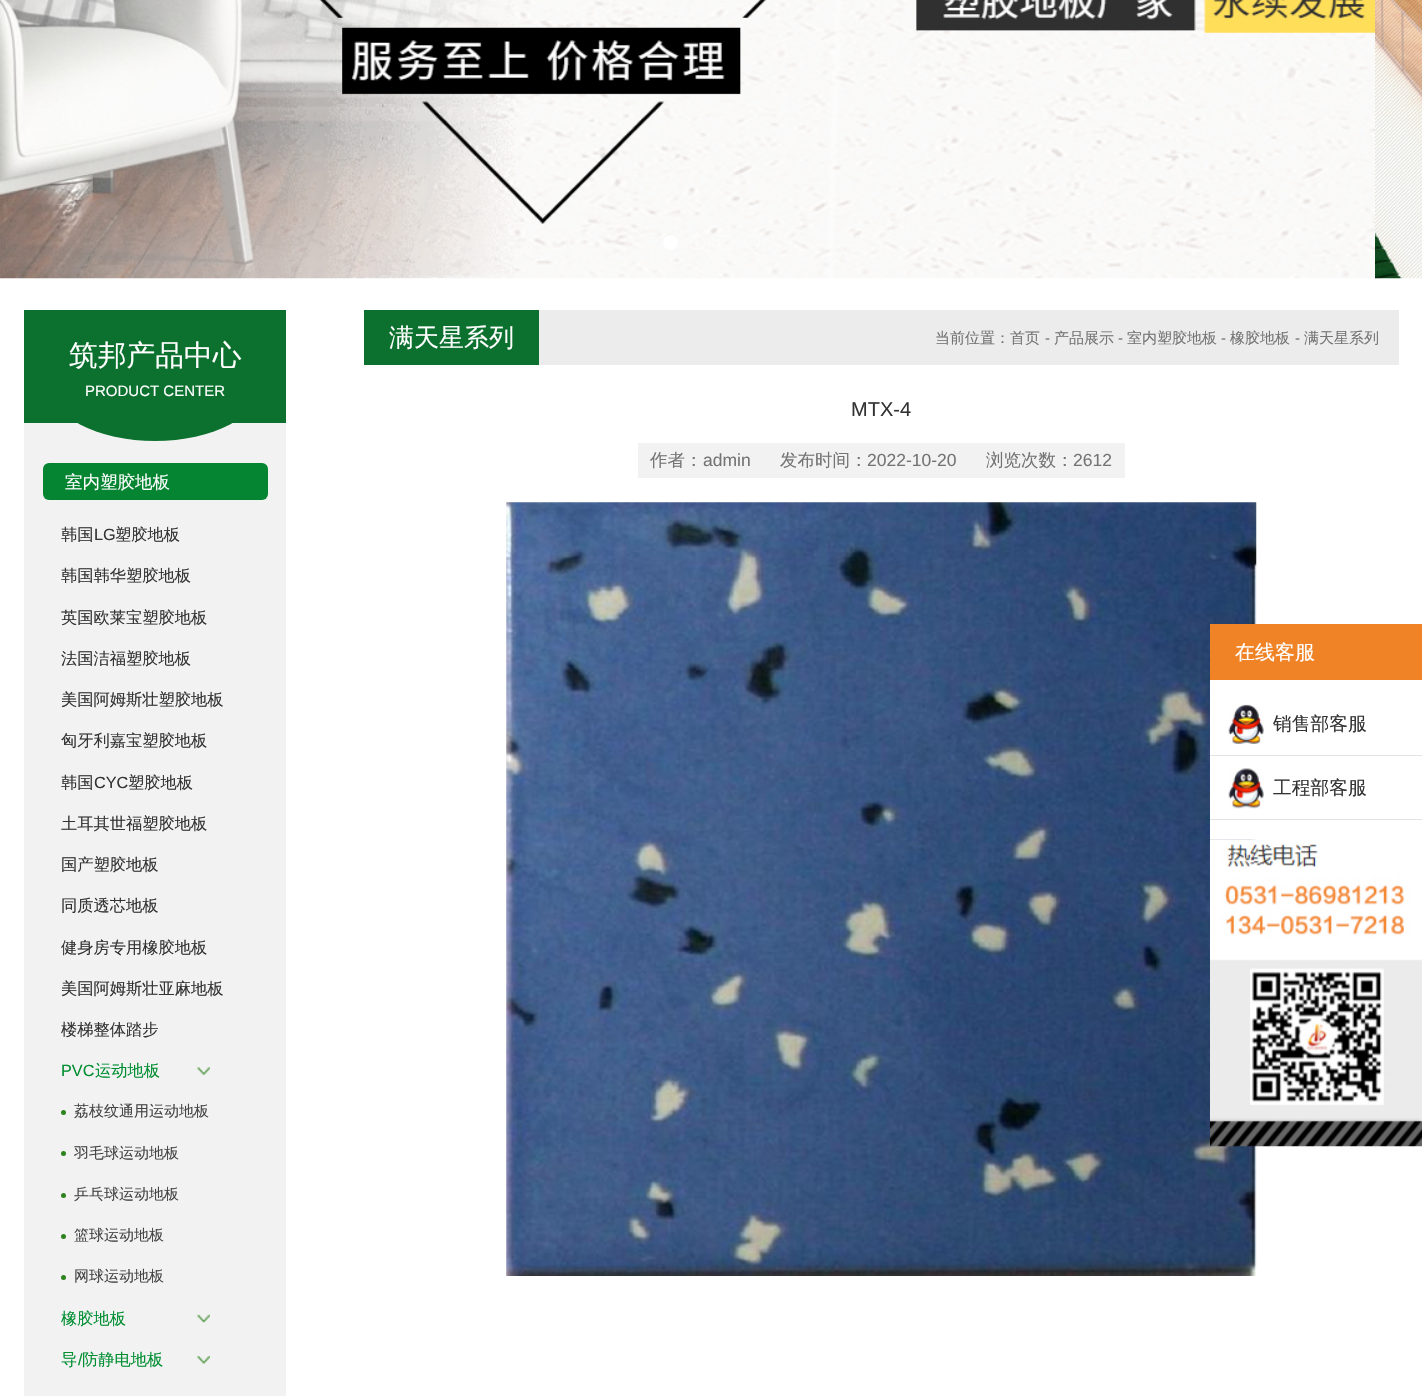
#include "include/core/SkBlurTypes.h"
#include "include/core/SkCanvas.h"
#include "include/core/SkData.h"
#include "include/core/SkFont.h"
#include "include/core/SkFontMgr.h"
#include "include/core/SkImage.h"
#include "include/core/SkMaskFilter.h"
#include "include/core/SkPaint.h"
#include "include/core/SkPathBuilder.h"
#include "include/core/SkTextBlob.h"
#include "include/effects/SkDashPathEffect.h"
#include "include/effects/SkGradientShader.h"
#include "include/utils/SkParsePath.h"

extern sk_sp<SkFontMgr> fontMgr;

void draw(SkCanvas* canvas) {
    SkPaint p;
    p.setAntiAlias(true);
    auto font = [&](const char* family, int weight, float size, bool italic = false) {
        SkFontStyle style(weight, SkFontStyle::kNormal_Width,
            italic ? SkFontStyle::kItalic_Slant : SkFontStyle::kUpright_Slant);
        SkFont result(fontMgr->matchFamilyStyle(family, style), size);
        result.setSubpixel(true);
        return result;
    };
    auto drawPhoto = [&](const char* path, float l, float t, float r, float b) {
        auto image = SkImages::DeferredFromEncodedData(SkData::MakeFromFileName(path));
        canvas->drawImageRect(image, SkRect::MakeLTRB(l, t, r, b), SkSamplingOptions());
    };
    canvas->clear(0xFFFFFFFF);
    drawPhoto("media/1.png", 0, 0, 1375, 279);
    drawPhoto("media/2.png", 1375, 0, 1422, 279);
    p.setColor(0xFFFFFFFF);
    canvas->drawCircle(670.5f, 242.5f, 7.5f, p);
    p.setStyle(SkPaint::kStroke_Style);
    p.setStrokeWidth(1);
    canvas->drawCircle(697.5f, 242.5f, 7, p);
    canvas->drawCircle(725.5f, 242.5f, 7, p);
    canvas->drawCircle(752.5f, 242.5f, 7, p);
    p.setStyle(SkPaint::kFill_Style);
    p.setColor(0xFFF2F2F2);
    canvas->drawRect(SkRect::MakeLTRB(24, 423, 286, 1396), p);
    p.setColor(0xFF0C712F);
    canvas->drawRect(SkRect::MakeLTRB(24, 310, 286, 423), p);
    canvas->drawOval(SkRect::MakeLTRB(49, 329, 261, 441), p);
    auto font1 = font("WenQuanYi Zen Hei", 500, 28.75f);
    p.setColor(0xFFFFFFFF);
    canvas->drawString("筑邦产品中心", 69, 365, font1, p);
    auto font2 = font("Liberation Sans", 400, 15);
    canvas->drawString("PRODUCT CENTER", 85, 396, font2, p);
    p.setColor(0xFF058531);
    canvas->drawRoundRect(SkRect::MakeLTRB(43, 463, 268, 500), 6, 6, p);
    auto font3 = font("WenQuanYi Zen Hei", 500, 17.5f);
    p.setColor(0xFFFFFFFF);
    canvas->drawString("室内塑胶地板", 65, 488, font3, p);
    auto font4 = font("WenQuanYi Zen Hei", 500, 16.25f);
    p.setColor(0xFF333333);
    canvas->drawString("韩国", 61, 540, font4, p);
    auto font5 = font("Liberation Sans", 400, 16.25f);
    canvas->drawString("LG", 94, 540, font5, p);
    {
        const struct { const char* s; float x, y; } items[] = {
            {"塑胶地板", 115, 540},
            {"韩国韩华塑胶地板", 61, 581},
            {"英国欧莱宝塑胶地板", 61, 623},
            {"法国洁福塑胶地板", 61, 664},
            {"美国阿姆斯壮塑胶地板", 61, 705},
            {"匈牙利嘉宝塑胶地板", 61, 746},
            {"韩国", 61, 788},
        };
        for (auto [s, x, y] : items) {
            canvas->drawString(s, x, y, font4, p);
        }
    }
    canvas->drawString("CYC", 94, 788, font5, p);
    {
        const struct { const char* s; float x, y; } items[] = {
            {"塑胶地板", 128, 788},
            {"土耳其世福塑胶地板", 61, 829},
            {"国产塑胶地板", 61, 870},
            {"同质透芯地板", 61, 911},
            {"健身房专用橡胶地板", 61, 953},
            {"美国阿姆斯壮亚麻地板", 61, 994},
            {"楼梯整体踏步", 61, 1035},
        };
        for (auto [s, x, y] : items) {
            canvas->drawString(s, x, y, font4, p);
        }
    }
    drawPhoto("media/3.png", 197, 1067, 210, 1075);
    p.setColor(0xFF008E31);
    canvas->drawString("PVC", 61, 1076, font5, p);
    canvas->drawString("运动地板", 95, 1076, font4, p);
    p.setColor(0xFF2D831E);
    canvas->drawCircle(63.5f, 1112.5f, 2.5f, p);
    auto font6 = font("WenQuanYi Zen Hei", 500, 15);
    p.setColor(0xFF444444);
    canvas->drawString("荔枝纹通用运动地板", 74, 1116, font6, p);
    p.setColor(0xFF2D831E);
    canvas->drawCircle(63.5f, 1153.5f, 2.5f, p);
    p.setColor(0xFF444444);
    canvas->drawString("羽毛球运动地板", 74, 1158, font6, p);
    p.setColor(0xFF2D831E);
    canvas->drawCircle(63.5f, 1195.5f, 2.5f, p);
    p.setColor(0xFF444444);
    canvas->drawString("乒乓球运动地板", 74, 1199, font6, p);
    p.setColor(0xFF2D831E);
    canvas->drawCircle(63.5f, 1236.5f, 2.5f, p);
    p.setColor(0xFF444444);
    canvas->drawString("篮球运动地板", 74, 1240, font6, p);
    p.setColor(0xFF2D831E);
    canvas->drawCircle(63.5f, 1277.5f, 2.5f, p);
    p.setColor(0xFF444444);
    canvas->drawString("网球运动地板", 74, 1281, font6, p);
    drawPhoto("media/4.png", 197, 1314, 210, 1323);
    p.setColor(0xFF008E31);
    canvas->drawString("橡胶地板", 61, 1324, font4, p);
    drawPhoto("media/5.png", 197, 1356, 210, 1364);
    canvas->drawString("导", 61, 1365, font4, p);
    canvas->drawString("/", 78, 1365, font5, p);
    canvas->drawString("防静电地板", 82, 1365, font4, p);
    p.setColor(0xFFECECEC);
    canvas->drawRect(SkRect::MakeLTRB(539, 310, 1399, 365), p);
    p.setColor(0xFF0C712F);
    canvas->drawRect(SkRect::MakeLTRB(364, 310, 539, 365), p);
    auto font7 = font("WenQuanYi Zen Hei", 500, 25);
    p.setColor(0xFFFFFFFF);
    canvas->drawString("满天星系列", 389, 346, font7, p);
    p.setColor(0xFF747474);
    canvas->drawString("当前位置：首页", 935, 343, font6, p);
    canvas->drawString("-", 1045, 343, font2, p);
    canvas->drawString("产品展示", 1054, 343, font6, p);
    canvas->drawString("-", 1118, 343, font2, p);
    canvas->drawString("室内塑胶地板", 1127, 343, font6, p);
    canvas->drawString("-", 1221, 343, font2, p);
    canvas->drawString("橡胶地板", 1230, 343, font6, p);
    canvas->drawString("-", 1295, 343, font2, p);
    canvas->drawString("满天星系列", 1304, 343, font6, p);
    auto font8 = font("Liberation Sans", 400, 20);
    p.setColor(0xFF333333);
    canvas->drawString("MTX-4", 851, 416, font8, p);
    p.setColor(0xFFF2F2F2);
    canvas->drawRect(SkRect::MakeLTRB(638, 443, 1125, 478), p);
    p.setColor(0xFF747474);
    canvas->drawString("作者：", 650, 466, font3, p);
    auto font9 = font("Liberation Sans", 400, 17.5f);
    canvas->drawString("admin", 703, 466, font9, p);
    canvas->drawString("发布时间：", 780, 466, font3, p);
    canvas->drawString("2022-10-20", 867, 466, font9, p);
    canvas->drawString("浏览次数：", 986, 466, font3, p);
    canvas->drawString("2612", 1073, 466, font9, p);
    drawPhoto("media/6.png", 506, 502, 1257, 1276);
    p.setColor(0xFFF08326);
    canvas->drawRect(SkRect::MakeLTRB(1210, 624, 1422, 680), p);
    auto font10 = font("WenQuanYi Zen Hei", 500, 20);
    p.setColor(0xFFFFFFFF);
    canvas->drawString("在线客服", 1235, 659, font10, p);
    canvas->drawRect(SkRect::MakeLTRB(1210, 680, 1257, 839), p);
    drawPhoto("media/7.png", 1228, 704, 1264, 744);
    p.setColor(0xFFE3E3E3);
    canvas->drawRect(SkRect::MakeLTRB(1210, 755, 1422, 756), p);
    auto font11 = font("WenQuanYi Zen Hei", 500, 18.75f);
    p.setColor(0xFF333333);
    canvas->drawString("销售部客服", 1273, 730, font11, p);
    drawPhoto("media/8.png", 1228, 768, 1264, 809);
    p.setColor(0xFFE3E3E3);
    canvas->drawRect(SkRect::MakeLTRB(1210, 819, 1422, 820), p);
    p.setColor(0xFF333333);
    canvas->drawString("工程部客服", 1273, 794, font11, p);
    drawPhoto("media/9.png", 1210, 839, 1422, 1147);
}
